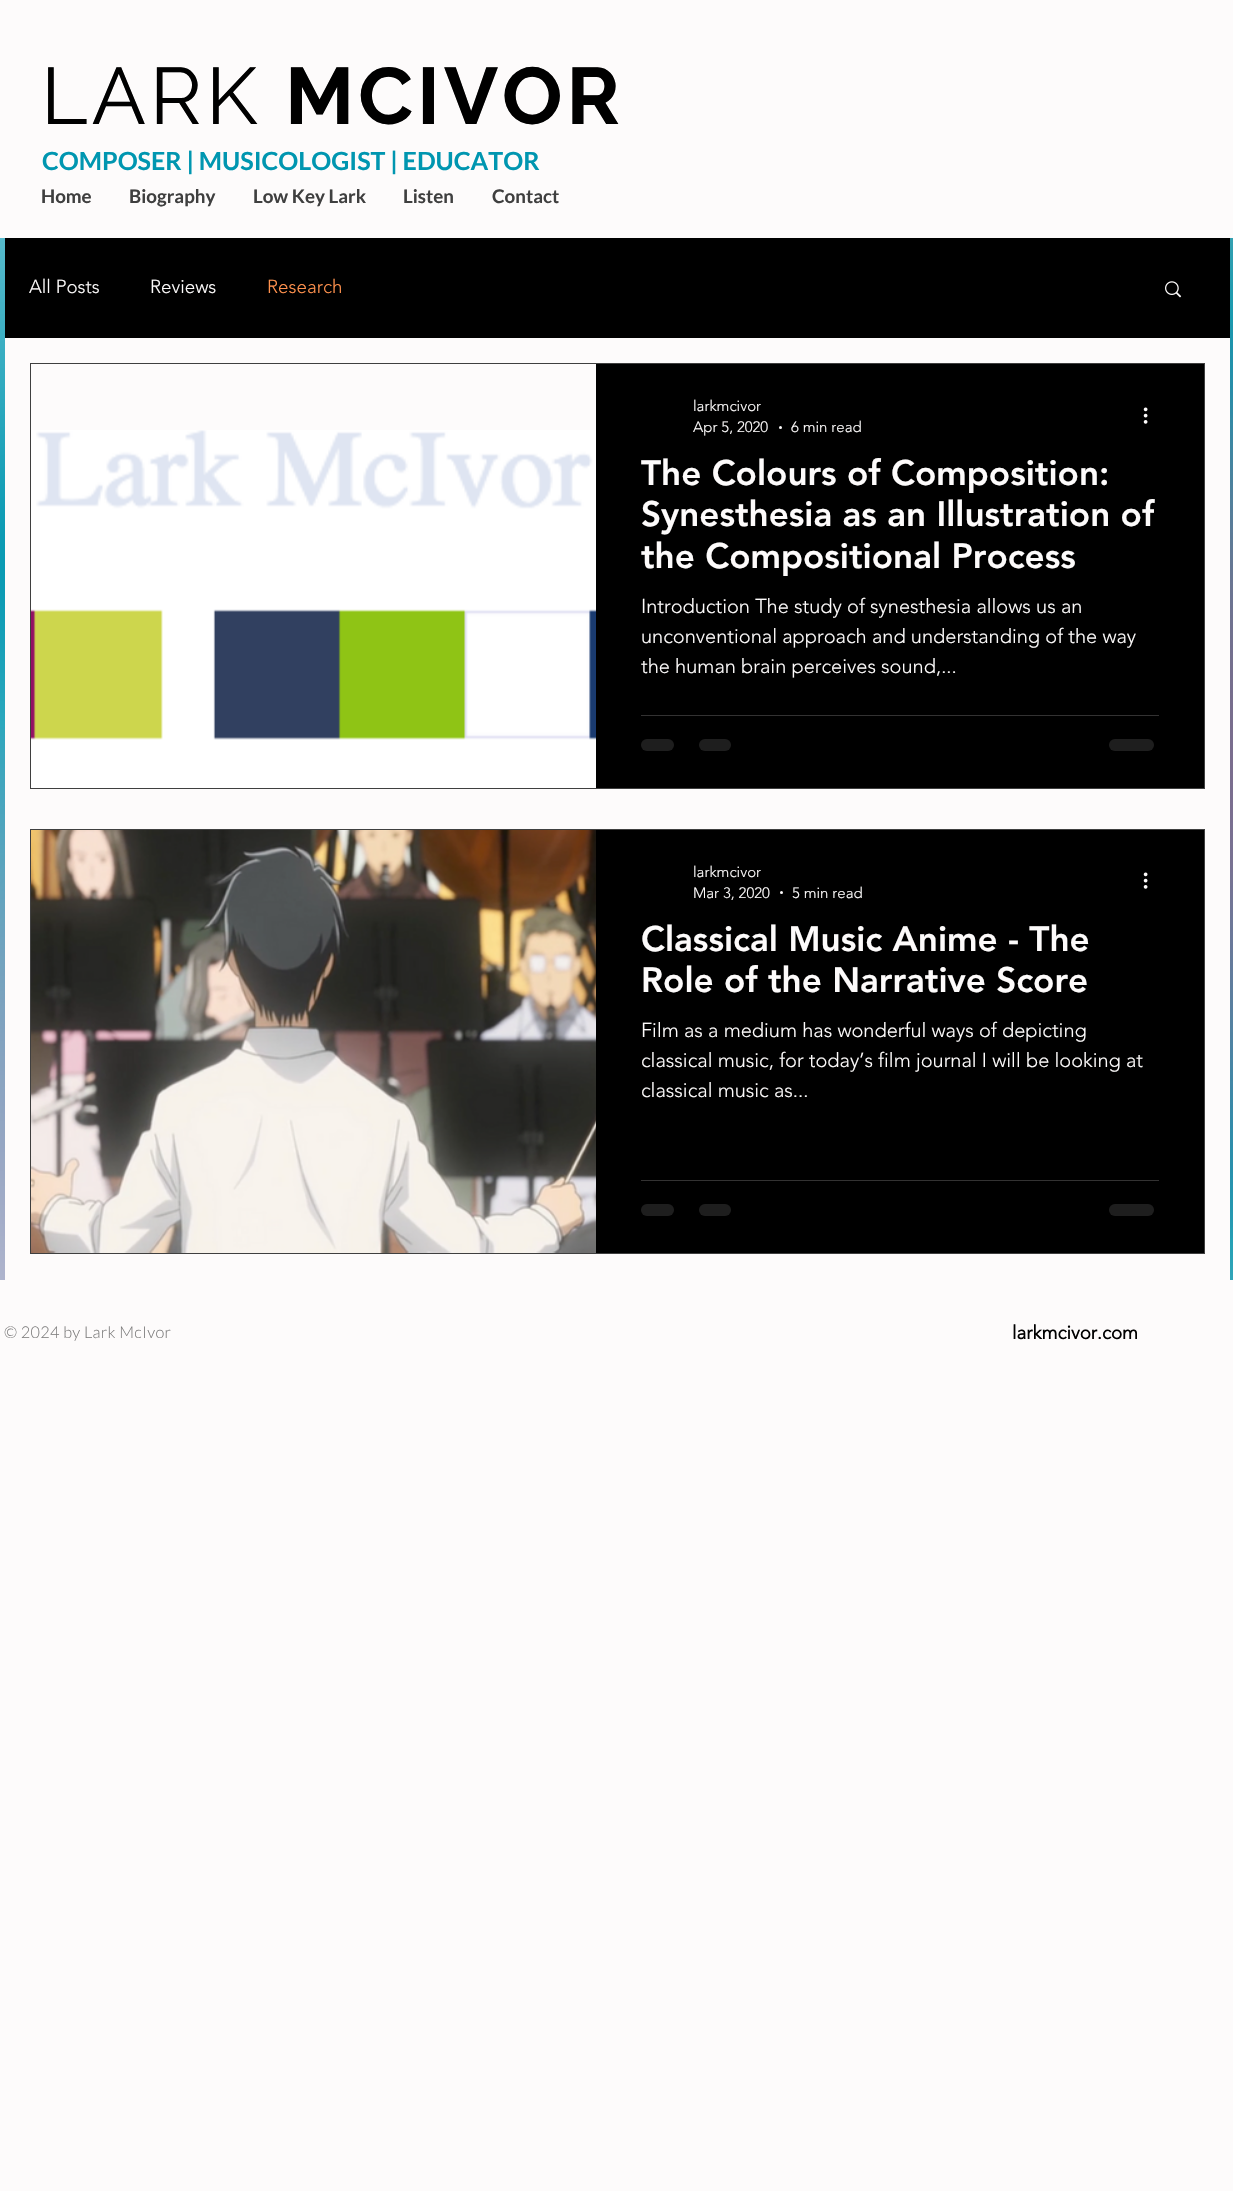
#include "include/core/SkBlurTypes.h"
#include "include/core/SkCanvas.h"
#include "include/core/SkData.h"
#include "include/core/SkFont.h"
#include "include/core/SkFontMgr.h"
#include "include/core/SkImage.h"
#include "include/core/SkMaskFilter.h"
#include "include/core/SkPaint.h"
#include "include/core/SkPathBuilder.h"
#include "include/core/SkTextBlob.h"
#include "include/effects/SkDashPathEffect.h"
#include "include/effects/SkGradientShader.h"
#include "include/utils/SkParsePath.h"

extern sk_sp<SkFontMgr> fontMgr;

void draw(SkCanvas* canvas) {
    SkPaint p;
    p.setAntiAlias(true);
    auto font = [&](const char* family, int weight, float size, bool italic = false) {
        SkFontStyle style(weight, SkFontStyle::kNormal_Width,
            italic ? SkFontStyle::kItalic_Slant : SkFontStyle::kUpright_Slant);
        SkFont result(fontMgr->matchFamilyStyle(family, style), size);
        result.setSubpixel(true);
        return result;
    };
    auto drawTracked = [&](const char* s, float x, float y, const SkFont& font, const SkPaint& ink, float letter, float word) {
        std::vector<SkGlyphID> glyphs(font.countText(s, strlen(s), SkTextEncoding::kUTF8));
        std::vector<float> xs(glyphs.size());
        font.textToGlyphs(s, strlen(s), SkTextEncoding::kUTF8, glyphs);
        font.getXPos(glyphs, xs, x);
        float extra = 0;
        for (size_t i = 0; i < glyphs.size(); i++) {
            xs[i] += extra;
            extra += letter + word * (glyphs[i] == font.unicharToGlyph(' '));
        }
        canvas->drawTextBlob(SkTextBlob::MakeFromPosHGlyphs(glyphs, xs, y, font), 0, 0, ink);
    };
    auto drawPhoto = [&](const char* path, float l, float t, float r, float b) {
        auto image = SkImages::DeferredFromEncodedData(SkData::MakeFromFileName(path));
        canvas->drawImageRect(image, SkRect::MakeLTRB(l, t, r, b), SkSamplingOptions());
    };
    canvas->clear(0xFFFDFBFB);
    auto font1 = font("Raleway", 400, 80);
    p.setColor(0xFF000000);
    drawTracked("LARK", 41, 124, font1, p, 4, 0);
    auto font2 = font("Raleway", 700, 80);
    drawTracked("MCIVOR", 285, 124, font2, p, 4, 0);
    auto font3 = font("Lato", 700, 25);
    p.setColor(0xFF0096B0);
    canvas->drawString("COMPOSER | MUSICOLOGIST | EDUCATOR", 42, 170, font3, p);
    auto font4 = font("Lato", 700, 18.75f);
    p.setColor(0xFF3F3F3F);
    {
        const struct { const char* s; float x, y; } items[] = {
            {"Home", 41, 203},
            {"Biography", 129, 203},
            {"Low Key Lark", 253, 203},
            {"Listen", 403, 203},
            {"Contact", 492, 203},
        };
        for (auto [s, x, y] : items) {
            canvas->drawString(s, x, y, font4, p);
        }
    }
    {
        const SkColor colors[] = {0xFFA36B53, 0xFFFFFFFF};
        const float stops[] = {0, 0.7f};
        p.setShader(SkGradientShader::MakeRadial({1037, 662}, 1207, colors, stops, 2, SkTileMode::kClamp));
        p.setAlpha(255);
    }
    canvas->drawRect(SkRect::MakeLTRB(0, 238, 1233, 1280), p);
    {
        const SkColor colors[] = {0xFF0096B0, 0x000096B0};
        const float stops[] = {0, 0.7f};
        p.setShader(SkGradientShader::MakeRadial({43, 564}, 1389, colors, stops, 2, SkTileMode::kClamp));
        p.setAlpha(255);
    }
    canvas->drawRect(SkRect::MakeLTRB(0, 238, 5, 1280), p);
    {
        const SkColor colors[] = {0xFC8F4185, 0x008F4185};
        const float stops[] = {0, 0.5f};
        p.setShader(SkGradientShader::MakeRadial({422, 1164}, 1232, colors, stops, 2, SkTileMode::kClamp));
        p.setAlpha(255);
    }
    canvas->drawRect(SkRect::MakeLTRB(0, 727, 5, 1280), p);
    {
        const SkColor colors[] = {0xFF0096B0, 0x000096B0};
        const float stops[] = {0, 0.4f};
        p.setShader(SkGradientShader::MakeRadial({1164, 1172}, 1493, colors, stops, 2, SkTileMode::kClamp));
        p.setAlpha(255);
    }
    canvas->drawRect(SkRect::MakeLTRB(1230, 592, 1233, 1280), p);
    {
        const SkColor colors[] = {0xFF0096B0, 0x000096B0};
        const float stops[] = {0, 0.35f};
        p.setShader(SkGradientShader::MakeRadial({1175, 351}, 1498, colors, stops, 2, SkTileMode::kClamp));
        p.setAlpha(255);
    }
    canvas->drawRect(SkRect::MakeLTRB(1230, 238, 1233, 860), p);
    {
        const SkColor colors[] = {0xFF8F4185, 0x008F4185};
        const float stops[] = {0, 0.52f};
        p.setShader(SkGradientShader::MakeRadial({933, 780}, 1079, colors, stops, 2, SkTileMode::kClamp));
        p.setAlpha(255);
    }
    canvas->drawRect(SkRect::MakeLTRB(1230, 322, 1233, 1238), p);
    p.setShader(nullptr);
    p.setColor(0xFFFDFBFB);
    canvas->drawRect(SkRect::MakeLTRB(5, 338, 1230, 1280), p);
    p.setColor(0xFF000000);
    canvas->drawRect(SkRect::MakeLTRB(5, 238, 1230, 338), p);
    auto font5 = font("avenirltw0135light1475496", 300, 18.75f);
    p.setColor(0xFFFDFBFB);
    canvas->drawString("All Posts", 29, 293, font5, p);
    canvas->drawString("Reviews", 150, 293, font5, p);
    p.setColor(0xFFFF914D);
    canvas->drawString("Research", 267, 293, font5, p);
    drawPhoto("media/1.png", 1165, 281, 1182, 298);
    p.setStyle(SkPaint::kStroke_Style);
    p.setStrokeWidth(1);
    p.setColor(0xFF3F3F3F);
    canvas->drawRect(SkRect::MakeLTRB(30.5f, 363.5f, 1204.5f, 788.5f), p);
    drawPhoto("media/2.png", 31, 430, 596, 788);
    p.setStyle(SkPaint::kFill_Style);
    p.setColor(0xFF000000);
    canvas->drawRect(SkRect::MakeLTRB(596, 364, 1204, 788), p);
    auto font6 = font("avenirltw0135light1475496", 300, 15);
    p.setColor(0xFFFDFBFB);
    canvas->drawString("larkmcivor", 693, 411, font6, p);
    canvas->drawString("Apr 5, 2020", 693, 432, font6, p);
    canvas->drawCircle(780.5f, 427.5f, 1.5f, p);
    canvas->drawString("6 min read", 791, 432, font6, p);
    drawPhoto("media/3.png", 1143, 407, 1148, 424);
    canvas->save();
    canvas->clipRect(SkRect::MakeLTRB(641, 453, 1159, 576));
    auto font7 = font("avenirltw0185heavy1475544", 900, 35);
    canvas->drawString("The Colours of Composition:", 641, 485, font7, p);
    canvas->restore();
    canvas->drawString("Synesthesia as an Illustration of", 641, 526, font7, p);
    canvas->drawString("the Compositional Process", 641, 568, font7, p);
    auto font8 = font("avenirltw0135light1475496", 300, 20);
    {
        const struct { const char* s; float x, y; } items[] = {
            {"Introduction The study of synesthesia allows us an", 641, 613},
            {"unconventional approach and understanding of the way", 641, 643},
            {"the human brain perceives sound,...", 641, 673},
        };
        for (auto [s, x, y] : items) {
            canvas->drawString(s, x, y, font8, p);
        }
    }
    p.setColor(0xFF333232);
    canvas->drawRect(SkRect::MakeLTRB(641, 715, 1159, 716), p);
    p.setColor(0xFF1E1E1E);
    canvas->drawRoundRect(SkRect::MakeLTRB(641, 739, 674, 751), 6, 6, p);
    canvas->drawRoundRect(SkRect::MakeLTRB(699, 739, 731, 751), 6, 6, p);
    canvas->drawRoundRect(SkRect::MakeLTRB(1109, 739, 1154, 751), 6, 6, p);
    p.setStyle(SkPaint::kStroke_Style);
    p.setColor(0xFF3F3F3F);
    canvas->drawRect(SkRect::MakeLTRB(30.5f, 829.5f, 1204.5f, 1253.5f), p);
    drawPhoto("media/4.png", 31, 830, 596, 1253);
    p.setStyle(SkPaint::kFill_Style);
    p.setColor(0xFF000000);
    canvas->drawRect(SkRect::MakeLTRB(596, 830, 1204, 1253), p);
    p.setColor(0xFFFDFBFB);
    canvas->drawString("larkmcivor", 693, 877, font6, p);
    canvas->drawString("Mar 3, 2020", 693, 898, font6, p);
    canvas->drawCircle(781.5f, 892.5f, 1.5f, p);
    canvas->drawString("5 min read", 792, 898, font6, p);
    drawPhoto("media/3.png", 1143, 872, 1148, 889);
    canvas->drawString("Classical Music Anime - The", 641, 951, font7, p);
    canvas->drawString("Role of the Narrative Score", 641, 992, font7, p);
    {
        const struct { const char* s; float x, y; } items[] = {
            {"Film as a medium has wonderful ways of depicting", 641, 1037},
            {"classical music, for today’s film journal I will be looking at", 641, 1067},
            {"classical music as...", 641, 1097},
        };
        for (auto [s, x, y] : items) {
            canvas->drawString(s, x, y, font8, p);
        }
    }
    p.setColor(0xFF333232);
    canvas->drawRect(SkRect::MakeLTRB(641, 1180, 1159, 1181), p);
    p.setColor(0xFF1E1E1E);
    canvas->drawRoundRect(SkRect::MakeLTRB(641, 1204, 674, 1216), 6, 6, p);
    canvas->drawRoundRect(SkRect::MakeLTRB(699, 1204, 731, 1216), 6, 6, p);
    canvas->drawRoundRect(SkRect::MakeLTRB(1109, 1204, 1154, 1216), 6, 6, p);
    auto font9 = font("Lato", 300, 16.25f);
    p.setColor(0xFF7F7E7E);
    drawTracked("© 2024 by Lark McIvor", 4, 1338, font9, p, 0.3f, 0);
    auto font10 = font("avenirltw0135light1475496", 700, 18.75f);
    p.setColor(0xFF000000);
    canvas->drawString("larkmcivor.com", 1012, 1339, font10, p);
}
